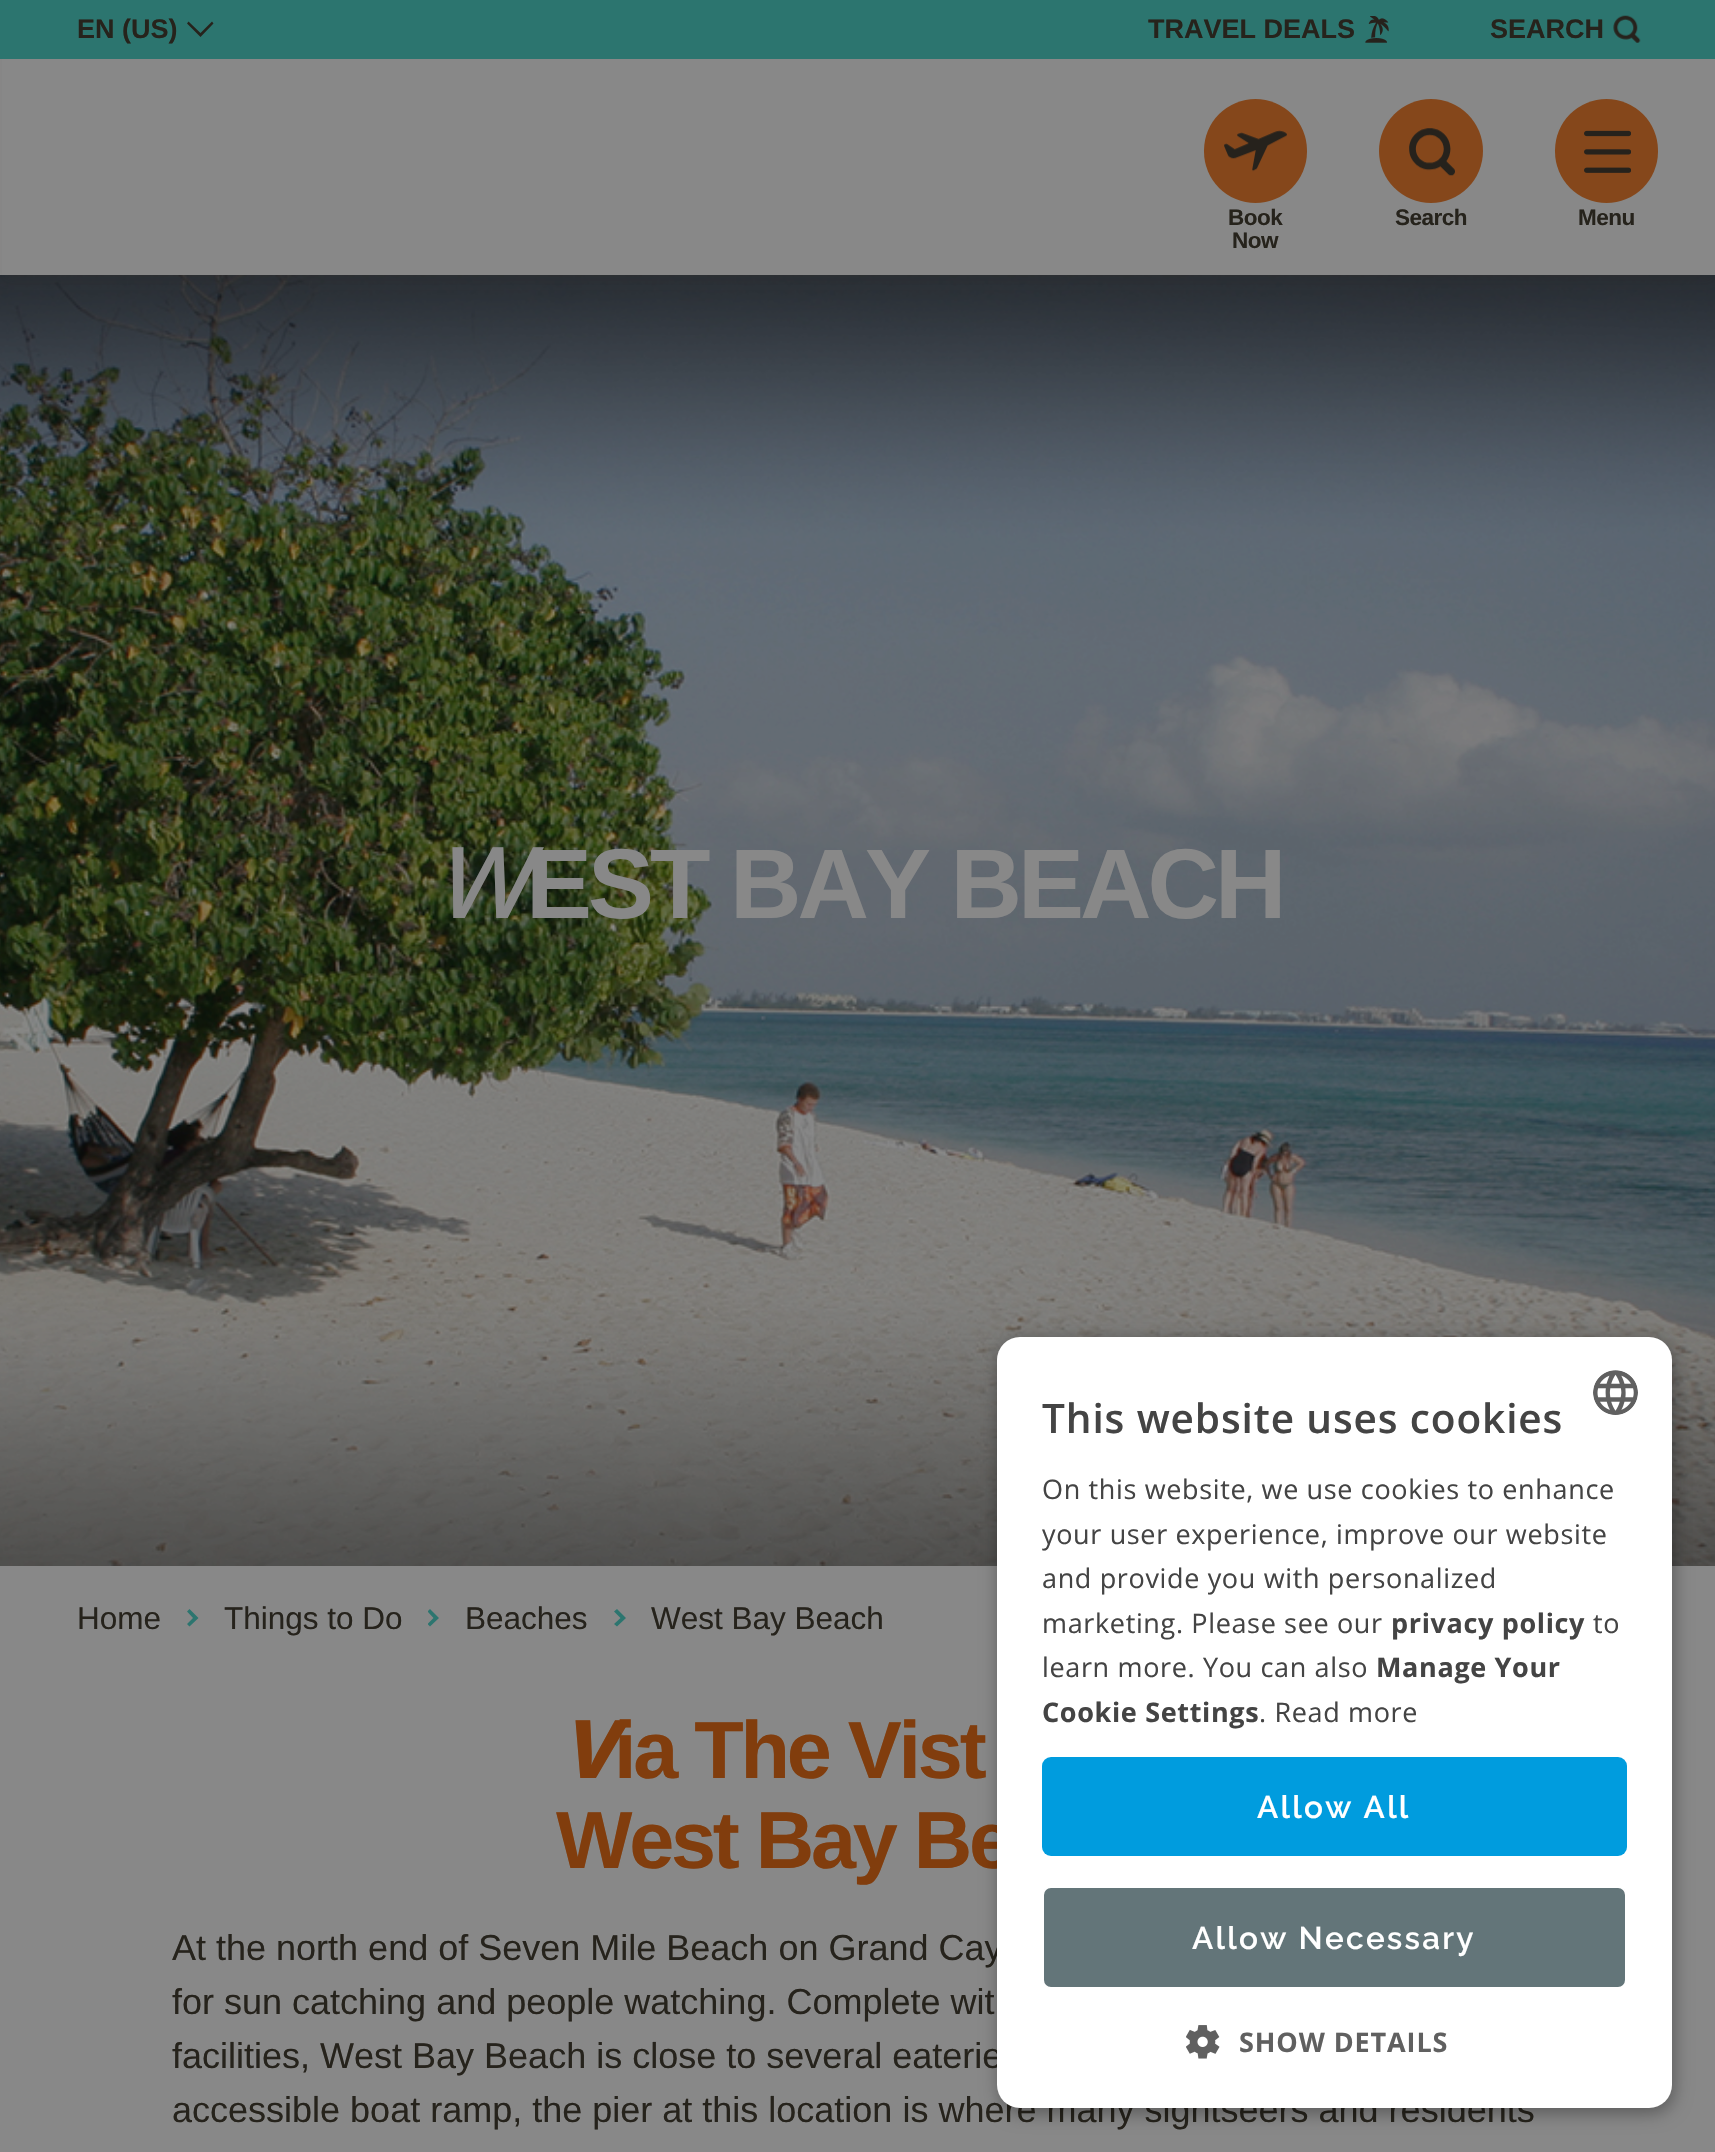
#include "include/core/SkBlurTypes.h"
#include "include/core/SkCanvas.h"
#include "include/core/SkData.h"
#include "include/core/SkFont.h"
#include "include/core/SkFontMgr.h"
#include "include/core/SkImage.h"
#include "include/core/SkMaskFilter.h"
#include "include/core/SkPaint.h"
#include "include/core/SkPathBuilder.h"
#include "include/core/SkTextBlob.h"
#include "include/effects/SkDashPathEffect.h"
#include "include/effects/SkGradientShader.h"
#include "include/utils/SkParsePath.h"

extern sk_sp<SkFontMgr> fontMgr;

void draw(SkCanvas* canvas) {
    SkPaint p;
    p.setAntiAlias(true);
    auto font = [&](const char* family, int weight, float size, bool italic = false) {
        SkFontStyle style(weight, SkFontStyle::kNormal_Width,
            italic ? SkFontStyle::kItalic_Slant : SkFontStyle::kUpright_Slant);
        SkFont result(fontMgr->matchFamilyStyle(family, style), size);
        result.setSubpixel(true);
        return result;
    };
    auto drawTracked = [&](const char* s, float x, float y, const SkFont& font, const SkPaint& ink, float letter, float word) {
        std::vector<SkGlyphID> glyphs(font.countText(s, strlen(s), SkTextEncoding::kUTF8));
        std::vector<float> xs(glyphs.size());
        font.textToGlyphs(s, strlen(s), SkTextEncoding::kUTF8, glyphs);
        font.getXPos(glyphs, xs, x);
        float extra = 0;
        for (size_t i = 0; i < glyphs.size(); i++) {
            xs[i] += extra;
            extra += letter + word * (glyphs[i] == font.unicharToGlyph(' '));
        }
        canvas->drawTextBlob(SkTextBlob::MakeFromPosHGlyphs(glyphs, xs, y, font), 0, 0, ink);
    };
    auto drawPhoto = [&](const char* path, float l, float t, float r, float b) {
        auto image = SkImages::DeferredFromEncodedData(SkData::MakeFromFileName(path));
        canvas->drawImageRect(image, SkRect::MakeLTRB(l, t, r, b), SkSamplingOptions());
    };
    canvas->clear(0xFF888888);
    drawPhoto("media/6.png", 0, 275, 1715, 1566);
    p.setColor(0x4033312D);
    p.setMaskFilter(SkMaskFilter::MakeBlur(kNormal_SkBlurStyle, 4.5f));
    canvas->drawRect(SkRect::MakeLTRB(7, 16, 1710, 277), p);
    p.setMaskFilter(nullptr);
    p.setColor(0xFF2C756F);
    canvas->drawRect(SkRect::MakeLTRB(0, 0, 1715, 59), p);
    auto font1 = font("Liberation Sans", 700, 27);
    p.setColor(0xFF26231C);
    canvas->drawString("EN (US)", 77, 38, font1, p);
    canvas->drawPath(SkPathBuilder().moveTo(188.5f, 21.5f).lineTo(187, 23.5f).lineTo(200.5f, 37).lineTo(213.5f, 23.5f).lineTo(212, 21.5f).lineTo(200.5f, 33).close().detach(), p);
    canvas->drawString("TRAVEL DEALS", 1148, 38, font1, p);
    drawPhoto("media/1.png", 1365, 16, 1389, 43);
    canvas->drawString("SEARCH", 1490, 38, font1, p);
    drawPhoto("media/2.png", 1613, 15, 1641, 43);
    p.setColor(0xFF888888);
    canvas->drawRect(SkRect::MakeLTRB(2, 59, 1715, 275), p);
    p.setColor(0xFF85471B);
    canvas->drawRoundRect(SkRect::MakeLTRB(1204, 99, 1307, 203), 51.5f, 51.5f, p);
    drawPhoto("media/3.png", 1224, 130, 1287, 172);
    auto font2 = font("Liberation Sans", 700, 22.5f);
    p.setColor(0xFF26231C);
    drawTracked("Book", 1228, 225, font2, p, -0.5f, 0);
    drawTracked("Now", 1232, 248, font2, p, -0.5f, 0);
    p.setColor(0xFF85471B);
    canvas->drawCircle(1431, 151, 52, p);
    drawPhoto("media/4.png", 1409, 128, 1455, 176);
    p.setColor(0xFF26231C);
    drawTracked("Search", 1395, 225, font2, p, -0.5f, 0);
    p.setColor(0xFF85471B);
    canvas->drawRoundRect(SkRect::MakeLTRB(1555, 99, 1658, 203), 51.5f, 51.5f, p);
    drawPhoto("media/5.png", 1584, 130, 1631, 173);
    p.setColor(0xFF26231C);
    drawTracked("Menu", 1578, 225, font2, p, -0.5f, 0);
    auto font3 = font("Noto Sans", 500, 99, true);
    p.setColor(0xFF888888);
    drawTracked("W", 434, 918, font3, p, -1, 0);
    auto font4 = font("Liberation Sans", 700, 99);
    drawTracked("EST BAY BEACH", 526, 918, font4, p, -4, 0);
    auto font5 = font("Liberation Sans", 400, 31.5f);
    p.setColor(0xFF26231C);
    canvas->drawString("Home", 77, 1629, font5, p);
    p.setColor(0xFF2C756F);
    canvas->drawPath(SkPathBuilder().moveTo(189.5f, 1609).lineTo(187, 1611.5f).lineTo(193, 1618).lineTo(187, 1624).lineTo(189.5f, 1626.5f).lineTo(198.5f, 1618).close().detach(), p);
    p.setColor(0xFF26231C);
    canvas->drawString("Things to Do", 224, 1629, font5, p);
    canvas->save();
    canvas->clipRect(SkRect::MakeLTRB(428, 1609, 439, 1627));
    p.setColor(0xFF2C756F);
    canvas->drawPath(SkPathBuilder().moveTo(430, 1609).lineTo(427.5f, 1611.5f).lineTo(433.5f, 1618).lineTo(427.5f, 1624).lineTo(430, 1626.5f).lineTo(439, 1618).close().detach(), p);
    canvas->restore();
    p.setColor(0xFF26231C);
    canvas->drawString("Beaches", 465, 1629, font5, p);
    p.setColor(0xFF2C756F);
    canvas->drawPath(SkPathBuilder().moveTo(617, 1609).lineTo(614, 1611.5f).lineTo(620.5f, 1618).lineTo(614, 1624).lineTo(617, 1626.5f).lineTo(626, 1618).close().detach(), p);
    p.setColor(0xFF26231C);
    canvas->drawString("West Bay Beach", 651, 1629, font5, p);
    auto font6 = font("Noto Sans", 800, 81, true);
    p.setColor(0xFF813D0D);
    drawTracked("V", 561, 1778, font6, p, -1, 0);
    auto font7 = font("Liberation Sans", 700, 81);
    drawTracked("ia The Vist", 614, 1778, font7, p, -3.25f, 0);
    drawTracked("West Bay Be", 556, 1868, font7, p, -3.25f, 0);
    auto font8 = font("Liberation Sans", 400, 36);
    p.setColor(0xFF26231C);
    {
        const struct { const char* s; float x, y; } items[] = {
            {"At the north end of Seven Mile Beach on Grand Cay", 172, 1960},
            {"for sun catching and people watching. Complete wit", 172, 2014},
            {"facilities, West Bay Beach is close to several eaterie", 172, 2068},
            {"accessible boat ramp, the pier at this location is where many sightseers and residents", 172, 2122},
        };
        for (auto [s, x, y] : items) {
            canvas->drawString(s, x, y, font8, p);
        }
    }
    p.setColor(0x59000000);
    p.setMaskFilter(SkMaskFilter::MakeBlur(kNormal_SkBlurStyle, 9));
    canvas->drawRoundRect(SkRect::MakeLTRB(999, 1341, 1674, 2113), 23, 23, p);
    p.setMaskFilter(nullptr);
    p.setColor(0xFFFFFFFF);
    canvas->drawRoundRect(SkRect::MakeLTRB(997, 1337, 1672, 2108), 23, 23, p);
    auto font9 = font("Open Sans", 600, 40.5f);
    p.setColor(0xFF444444);
    drawTracked("This website uses cookies", 1042, 1433, font9, p, 0.9f, 0);
    drawPhoto("media/7.png", 1593, 1370, 1638, 1415);
    auto font10 = font("Open Sans", 400, 27);
    {
        const struct { const char* s; float x, y; } items[] = {
            {"On this website, we use cookies to enhance", 1042, 1499},
            {"your user experience, improve our website", 1042, 1544},
            {"and provide you with personalized", 1042, 1588},
            {"marketing. Please see our", 1042, 1633},
        };
        for (auto [s, x, y] : items) {
            drawTracked(s, x, y, font10, p, 0.65f, 0);
        }
    }
    auto font11 = font("Open Sans", 700, 27);
    drawTracked("privacy policy", 1391, 1633, font11, p, 0.65f, 0);
    drawTracked("to", 1593, 1633, font10, p, 0.65f, 0);
    drawTracked("learn more. You can also", 1042, 1677, font10, p, 0.65f, 0);
    drawTracked("Manage Your", 1376, 1677, font11, p, 0.65f, 0);
    drawTracked("Cookie Settings", 1042, 1722, font11, p, 0.65f, 0);
    drawTracked(". Read more", 1259, 1722, font10, p, 0.65f, 0);
    p.setColor(0xFF009CDE);
    canvas->drawRoundRect(SkRect::MakeLTRB(1042, 1757, 1627, 1856), 9, 9, p);
    auto font12 = font("Raleway", 600, 31.5f);
    p.setColor(0xFFFFFFFF);
    drawTracked("Allow All", 1257, 1818, font12, p, 2.25f, 0);
    p.setColor(0xFF637579);
    canvas->drawRoundRect(SkRect::MakeLTRB(1043, 1887, 1626, 1988), 8, 8, p);
    p.setStyle(SkPaint::kStroke_Style);
    p.setStrokeWidth(2);
    p.setColor(0xFFFFFFFF);
    canvas->drawRoundRect(SkRect::MakeLTRB(1043, 1887, 1626, 1988), 8, 8, p);
    p.setStyle(SkPaint::kFill_Style);
    drawTracked("Allow Necessary", 1192, 1949, font12, p, 2.25f, 0);
    drawPhoto("media/8.png", 1186, 2025, 1220, 2059);
    p.setColor(0xFF606060);
    drawTracked("SHOW DETAILS", 1239, 2052, font11, p, 0.9f, 0);
}
